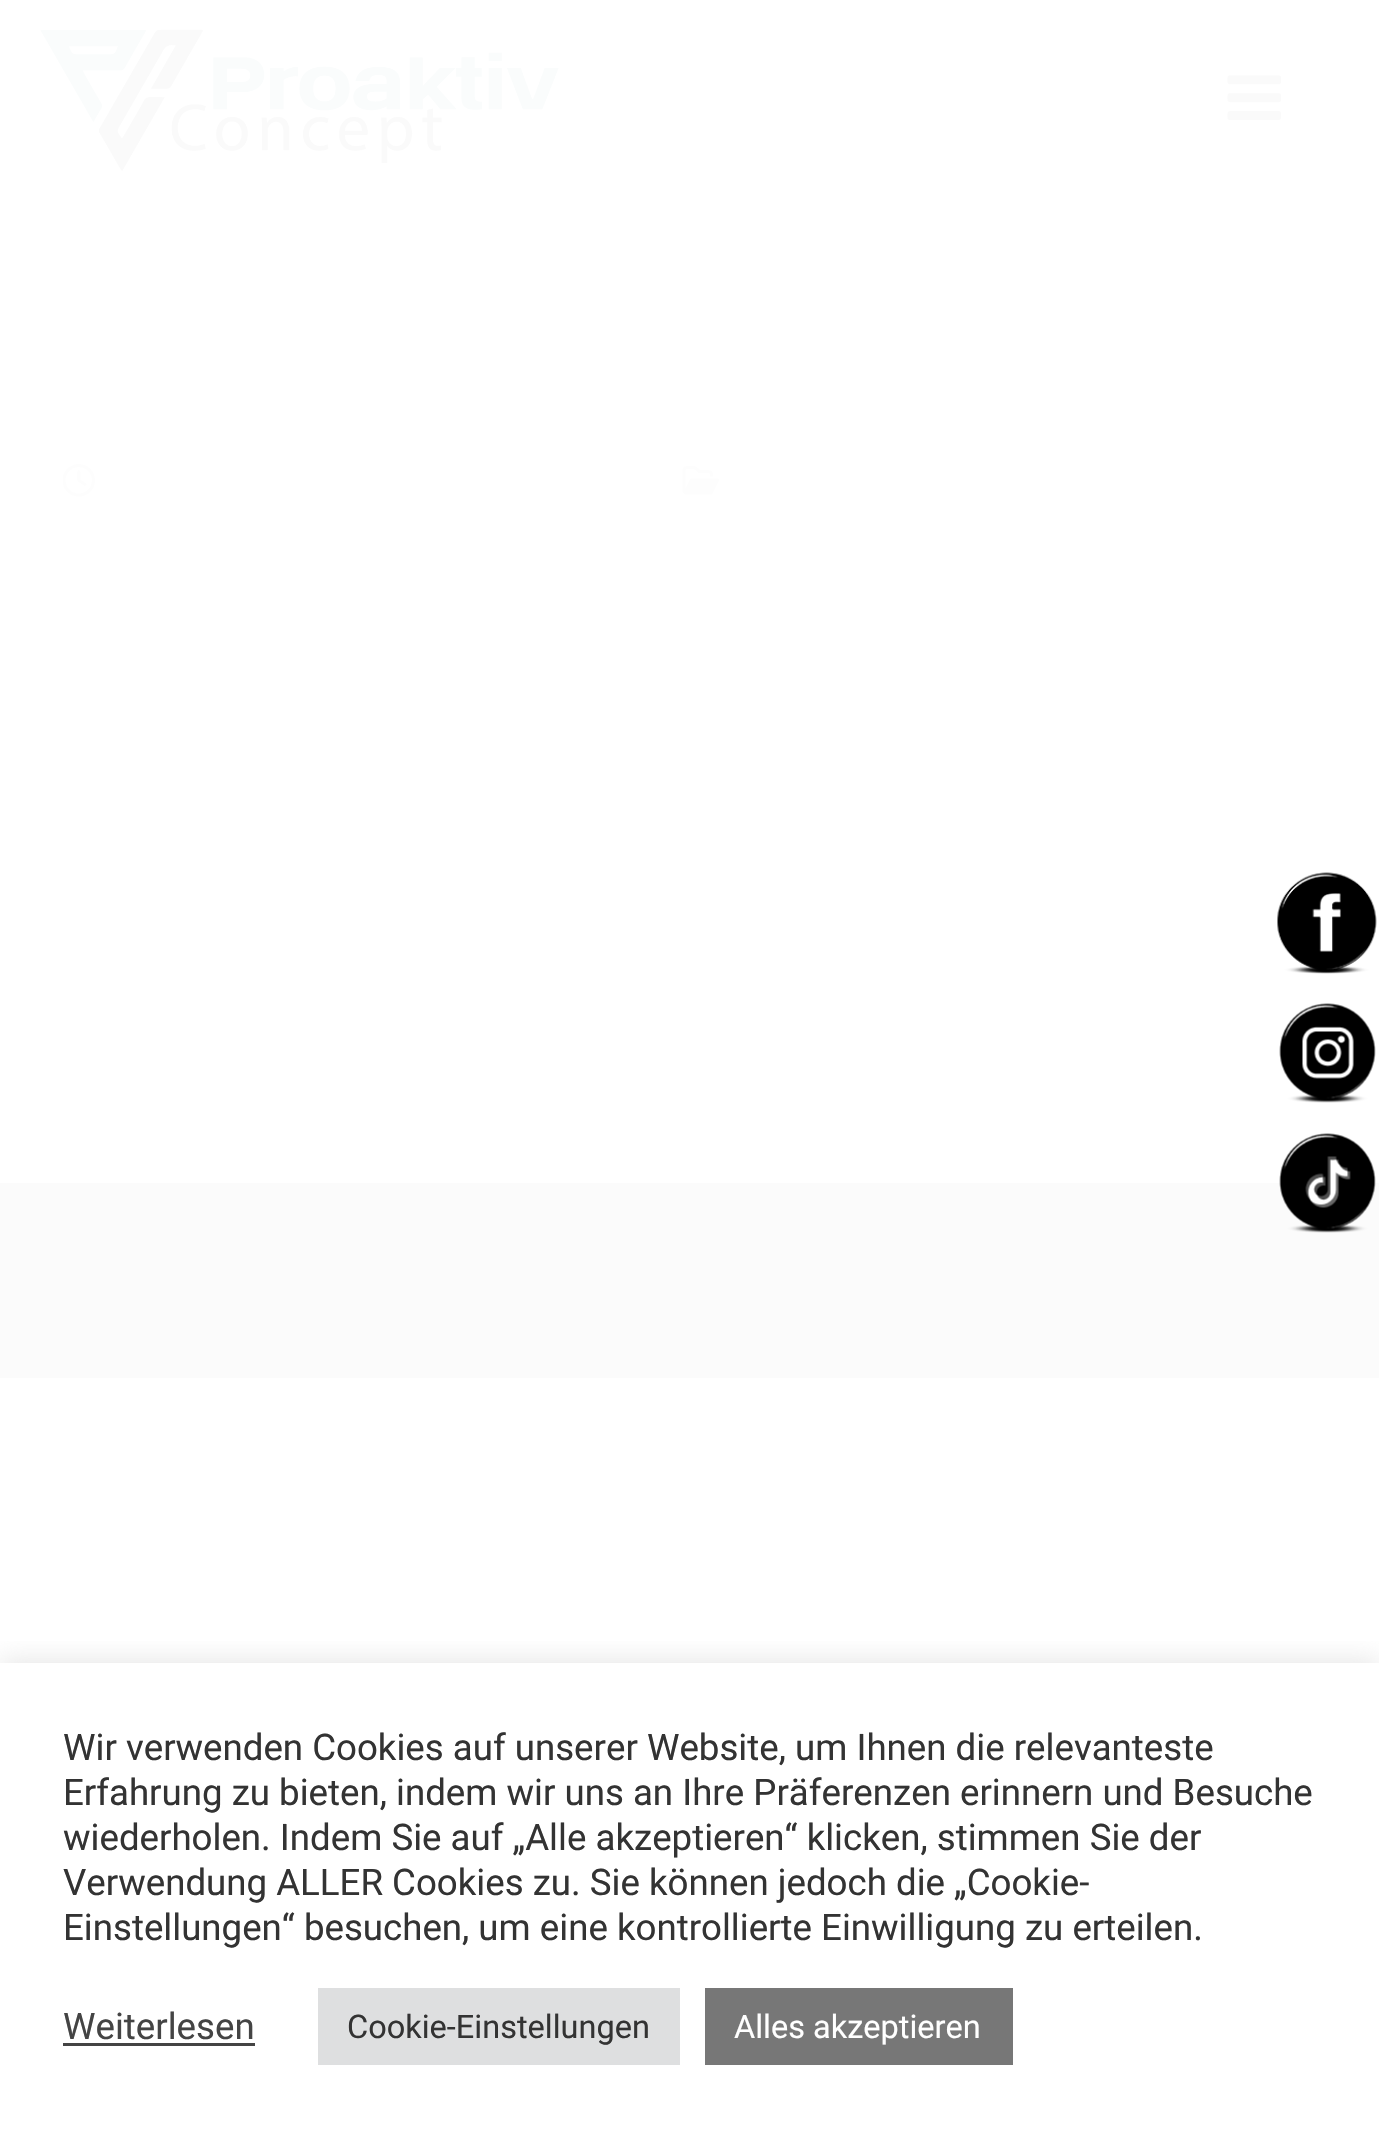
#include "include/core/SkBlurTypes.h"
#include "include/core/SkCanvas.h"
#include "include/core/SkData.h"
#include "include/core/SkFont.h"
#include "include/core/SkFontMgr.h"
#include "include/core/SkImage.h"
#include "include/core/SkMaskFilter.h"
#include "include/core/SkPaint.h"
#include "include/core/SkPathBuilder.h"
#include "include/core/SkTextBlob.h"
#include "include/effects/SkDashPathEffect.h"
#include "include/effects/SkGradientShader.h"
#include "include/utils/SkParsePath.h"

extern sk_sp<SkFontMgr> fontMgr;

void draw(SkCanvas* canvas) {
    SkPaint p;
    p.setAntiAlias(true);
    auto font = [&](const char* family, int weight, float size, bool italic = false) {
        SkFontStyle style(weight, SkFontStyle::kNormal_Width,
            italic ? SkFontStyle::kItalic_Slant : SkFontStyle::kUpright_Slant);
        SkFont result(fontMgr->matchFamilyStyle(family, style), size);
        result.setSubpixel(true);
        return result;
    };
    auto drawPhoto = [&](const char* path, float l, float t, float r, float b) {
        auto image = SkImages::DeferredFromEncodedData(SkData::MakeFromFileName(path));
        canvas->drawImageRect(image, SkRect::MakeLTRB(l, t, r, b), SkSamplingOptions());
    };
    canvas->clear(0xFFFFFFFF);
    drawPhoto("media/1.png", 40, 29, 559, 171);
    drawPhoto("media/2.png", 1227, 75, 1282, 120);
    drawPhoto("media/3.png", 63, 464, 95, 497);
    drawPhoto("media/4.png", 682, 466, 719, 495);
    drawPhoto("media/5.png", 1277, 872, 1377, 974);
    drawPhoto("media/6.png", 1279, 1003, 1376, 1103);
    p.setColor(0xFFFBFBFB);
    canvas->drawRect(SkRect::MakeLTRB(0, 1183, 1379, 1378), p);
    drawPhoto("media/7.png", 1279, 1133, 1376, 1233);
    canvas->save();
    canvas->clipRect(SkRect::MakeLTRB(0, 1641, 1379, 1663));
    p.setColor(0x4DACABAB);
    p.setMaskFilter(SkMaskFilter::MakeBlur(kNormal_SkBlurStyle, 12.5f));
    canvas->drawRect(SkRect::MakeLTRB(0, 1660, 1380, 2138), p);
    p.setMaskFilter(nullptr);
    canvas->restore();
    auto font1 = font("Roboto", 400, 36.65f);
    p.setColor(0xFF333333);
    {
        const struct { const char* s; float x, y; } items[] = {
            {"Wir verwenden Cookies auf unserer Website, um Ihnen die relevanteste", 63, 1760},
            {"Erfahrung zu bieten, indem wir uns an Ihre Präferenzen erinnern und Besuche", 63, 1805},
            {"wiederholen. Indem Sie auf „Alle akzeptieren“ klicken, stimmen Sie der", 63, 1850},
            {"Verwendung ALLER Cookies zu. Sie können jedoch die „Cookie-", 63, 1895},
            {"Einstellungen“ besuchen, um eine kontrollierte Einwilligung zu erteilen.", 63, 1940},
        };
        for (auto [s, x, y] : items) {
            canvas->drawString(s, x, y, font1, p);
        }
    }
    p.setColor(0xFF444444);
    canvas->drawString("Weiterlesen", 63, 2039, font1, p);
    canvas->drawRect(SkRect::MakeLTRB(63, 2043, 255, 2046), p);
    p.setColor(0xFFDEDFE0);
    canvas->drawRect(SkRect::MakeLTRB(318, 1988, 680, 2065), p);
    auto font2 = font("Roboto", 400, 32.5f);
    p.setColor(0xFF333333);
    canvas->drawString("Cookie-Einstellungen", 347, 2038, font2, p);
    p.setColor(0xFF777777);
    canvas->drawRect(SkRect::MakeLTRB(705, 1988, 1013, 2065), p);
    p.setColor(0xFFFFFFFF);
    canvas->drawString("Alles akzeptieren", 734, 2038, font2, p);
}
